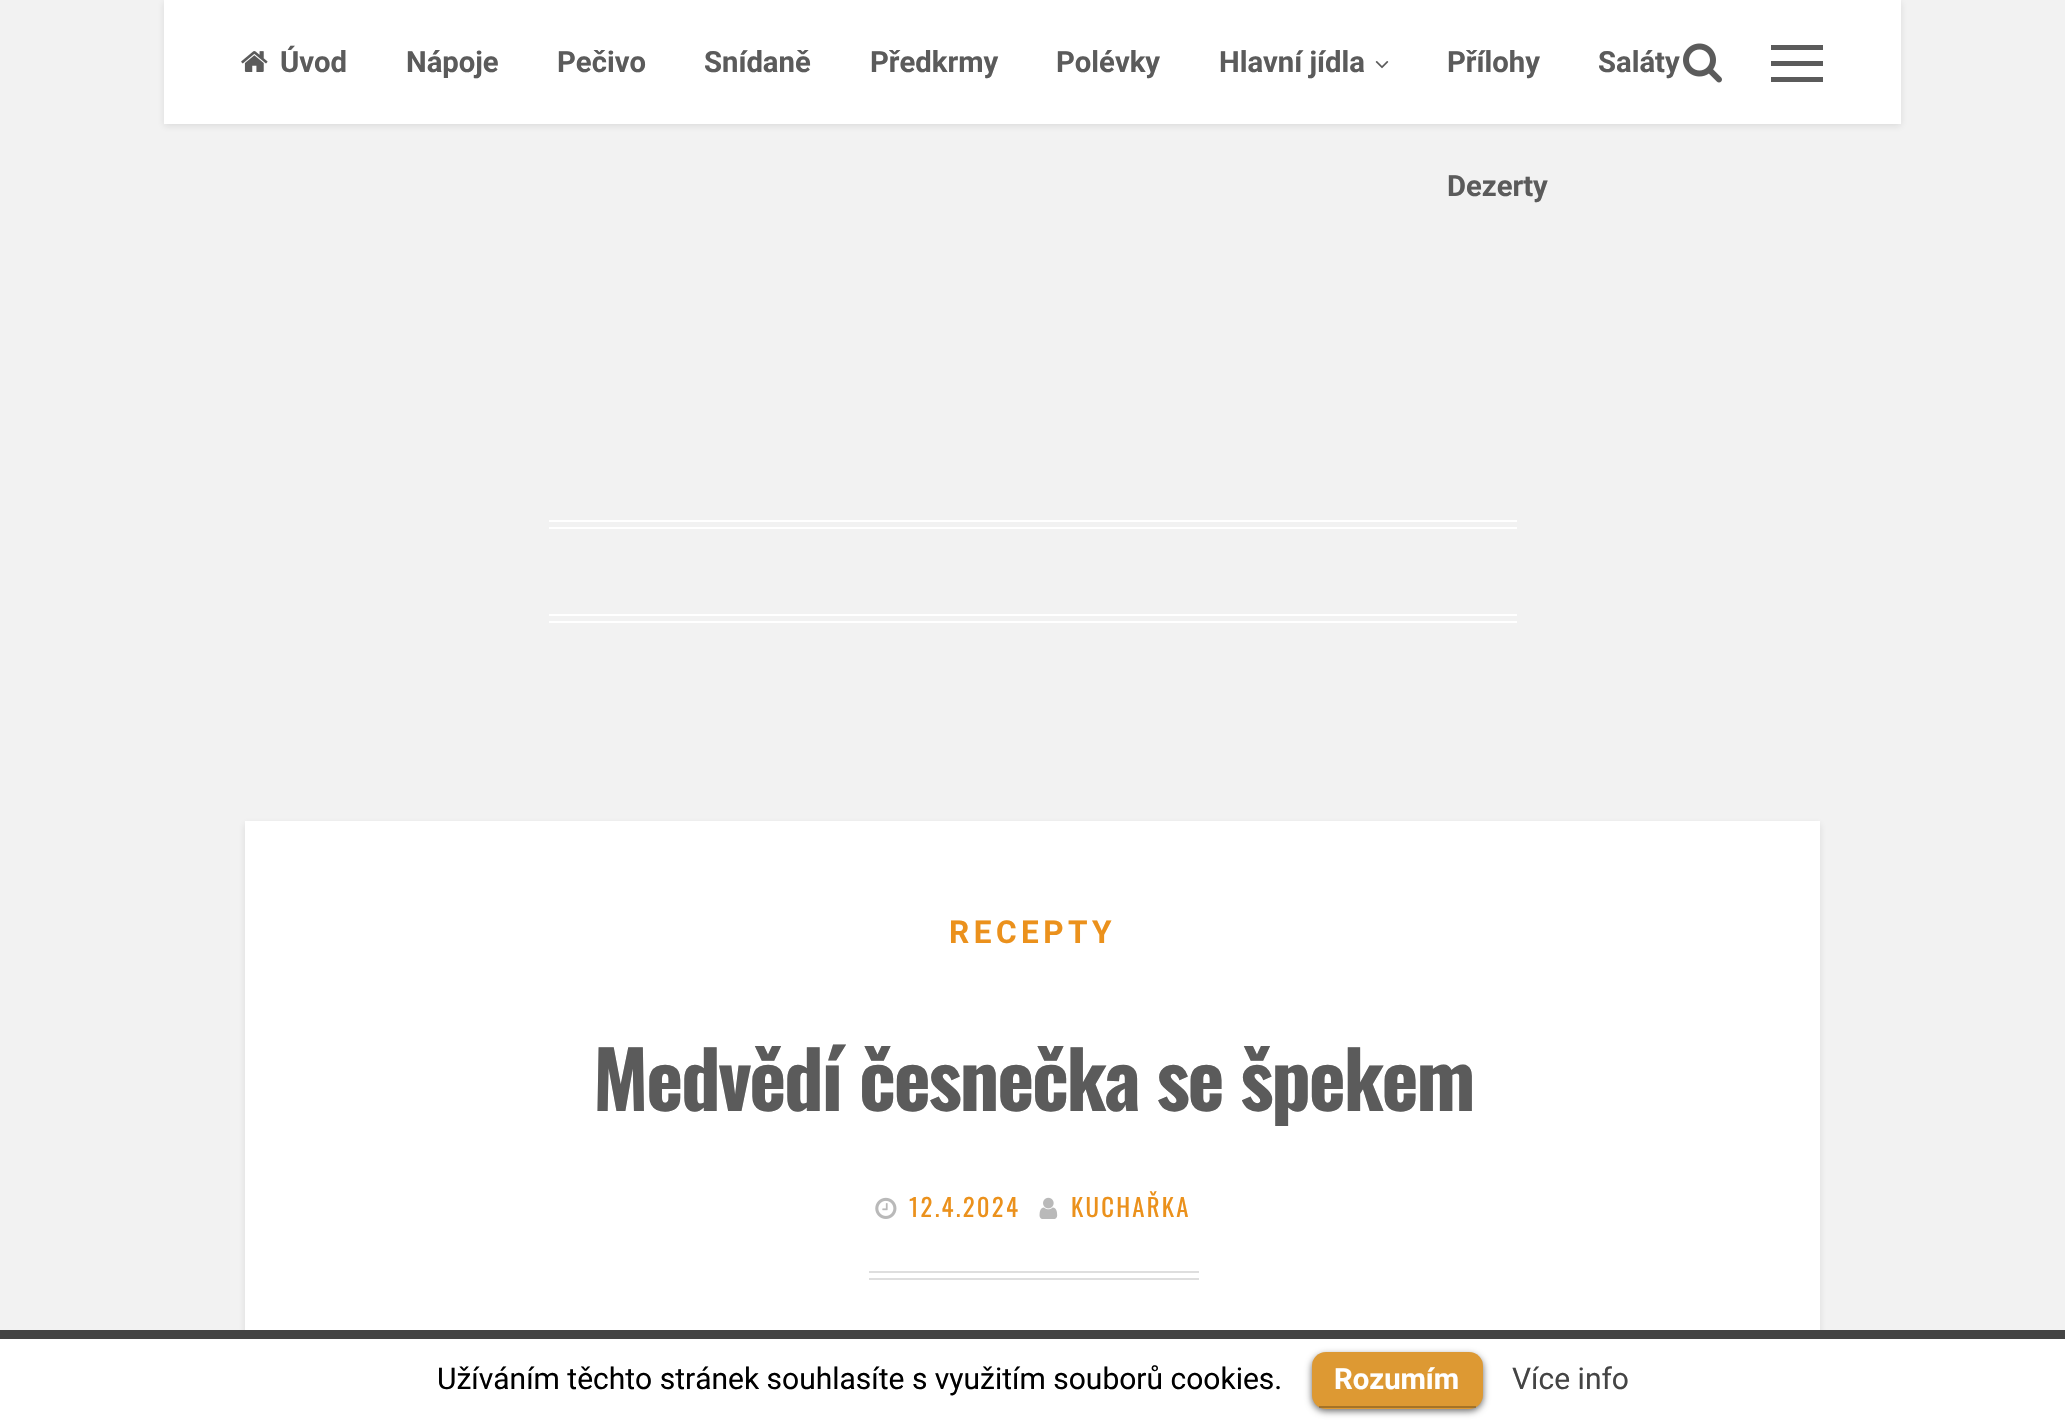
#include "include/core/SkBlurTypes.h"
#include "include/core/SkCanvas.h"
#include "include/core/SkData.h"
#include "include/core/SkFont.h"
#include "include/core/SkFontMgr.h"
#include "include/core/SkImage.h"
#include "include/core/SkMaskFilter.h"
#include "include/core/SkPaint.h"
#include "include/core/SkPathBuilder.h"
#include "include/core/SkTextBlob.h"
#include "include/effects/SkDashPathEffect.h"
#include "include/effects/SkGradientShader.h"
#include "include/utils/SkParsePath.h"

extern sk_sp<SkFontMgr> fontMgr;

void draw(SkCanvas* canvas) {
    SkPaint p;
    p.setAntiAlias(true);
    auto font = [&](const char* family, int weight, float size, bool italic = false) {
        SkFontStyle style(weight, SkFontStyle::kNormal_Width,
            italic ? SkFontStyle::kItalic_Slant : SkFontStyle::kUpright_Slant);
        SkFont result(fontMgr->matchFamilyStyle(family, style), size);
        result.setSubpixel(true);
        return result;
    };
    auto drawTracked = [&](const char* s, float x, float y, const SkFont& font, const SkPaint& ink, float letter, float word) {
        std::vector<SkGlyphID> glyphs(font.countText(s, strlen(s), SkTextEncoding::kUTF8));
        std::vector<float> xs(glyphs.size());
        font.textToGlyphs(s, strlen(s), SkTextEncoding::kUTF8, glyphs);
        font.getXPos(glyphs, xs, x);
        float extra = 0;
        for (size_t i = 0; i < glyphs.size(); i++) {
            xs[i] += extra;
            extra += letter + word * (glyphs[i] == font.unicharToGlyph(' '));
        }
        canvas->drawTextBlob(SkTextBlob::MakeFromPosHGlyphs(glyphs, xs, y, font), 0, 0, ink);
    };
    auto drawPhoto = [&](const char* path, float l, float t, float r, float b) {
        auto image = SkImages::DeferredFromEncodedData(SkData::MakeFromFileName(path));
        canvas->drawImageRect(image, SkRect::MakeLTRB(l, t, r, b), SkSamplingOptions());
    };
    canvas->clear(0xFFF2F2F2);
    p.setColor(0x1A0D0D0D);
    p.setMaskFilter(SkMaskFilter::MakeBlur(kNormal_SkBlurStyle, 3.5f));
    canvas->drawRect(SkRect::MakeLTRB(164, 2, 1901, 126), p);
    p.setMaskFilter(nullptr);
    p.setColor(0xFFFFFFFF);
    canvas->drawRect(SkRect::MakeLTRB(164, 0, 1901, 124), p);
    drawPhoto("media/1.png", 241, 51, 268, 72);
    auto font1 = font("Roboto", 700, 29.25f);
    p.setColor(0xFF5B5B5B);
    {
        const struct { const char* s; float x, y; } items[] = {
            {"Úvod", 280, 72},
            {"Nápoje", 406, 72},
            {"Pečivo", 557, 72},
            {"Snídaně", 704, 72},
            {"Předkrmy", 870, 72},
            {"Polévky", 1056, 72},
            {"Hlavní jídla", 1219, 72},
        };
        for (auto [s, x, y] : items) {
            canvas->drawString(s, x, y, font1, p);
        }
    }
    drawPhoto("media/2.png", 1375, 61, 1389, 69);
    {
        const struct { const char* s; float x, y; } items[] = {
            {"Přílohy", 1447, 72},
            {"Saláty", 1598, 72},
            {"Dezerty", 1447, 196},
        };
        for (auto [s, x, y] : items) {
            canvas->drawString(s, x, y, font1, p);
        }
    }
    drawPhoto("media/3.png", 1683, 43, 1722, 83);
    {
        const struct { float l, t, r, b; SkColor color; } items[] = {
            {1771, 61, 1823, 66, 0xFF5B5B5B},
            {1771, 45, 1823, 50, 0xFF5B5B5B},
            {1771, 77, 1823, 82, 0xFF5B5B5B},
            {549, 520, 1517, 522, 0xFFFFFFFF},
            {549, 527, 1517, 529, 0xFFFFFFFF},
            {549, 614, 1517, 616, 0xFFFFFFFF},
            {549, 621, 1517, 623, 0xFFFFFFFF},
        };
        for (auto [l, t, r, b, color] : items) {
            p.setColor(color);
            canvas->drawRect(SkRect::MakeLTRB(l, t, r, b), p);
        }
    }
    p.setColor(0x1A0D0D0D);
    p.setMaskFilter(SkMaskFilter::MakeBlur(kNormal_SkBlurStyle, 3.5f));
    canvas->drawRect(SkRect::MakeLTRB(245, 824, 1820, 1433), p);
    p.setMaskFilter(nullptr);
    p.setColor(0xFFFFFFFF);
    canvas->drawRect(SkRect::MakeLTRB(245, 821, 1820, 1330), p);
    auto font2 = font("Roboto", 700, 31.5f);
    p.setColor(0xFFEB911C);
    drawTracked("RECEPTY", 949, 943, font2, p, 4.5f, 0);
    auto font3 = font("Oswald", 700, 78.75f);
    p.setColor(0xFF5B5B5B);
    drawTracked("Medvědí česnečka se špekem", 593, 1111, font3, p, -2.25f, 0);
    drawPhoto("media/4.png", 875, 1197, 897, 1219);
    auto font4 = font("Oswald", 400, 24.75f);
    p.setColor(0xFFEB911C);
    drawTracked("12.4.2024", 909, 1217, font4, p, 2.25f, 0);
    drawPhoto("media/5.png", 1039, 1197, 1058, 1219);
    drawTracked("KUCHAŘKA", 1071, 1217, font4, p, 2.25f, 0);
    {
        const struct { float l, t, r, b; SkColor color; } items[] = {
            {869, 1271, 1199, 1273, 0xFFDEDEDE},
            {869, 1278, 1199, 1280, 0xFFDEDEDE},
            {0, 1339, 2065, 1422, 0xFFFFFFFF},
            {0, 1330, 2065, 1339, 0xFF444444},
        };
        for (auto [l, t, r, b, color] : items) {
            p.setColor(color);
            canvas->drawRect(SkRect::MakeLTRB(l, t, r, b), p);
        }
    }
    auto font5 = font("Roboto", 400, 30);
    p.setColor(0xFF000000);
    canvas->drawString("Užíváním těchto stránek souhlasíte s využitím souborů cookies.", 437, 1389, font5, p);
    p.setColor(0x99000000);
    p.setMaskFilter(SkMaskFilter::MakeBlur(kNormal_SkBlurStyle, 3.5f));
    canvas->drawRoundRect(SkRect::MakeLTRB(1312, 1355, 1483, 1411), 14, 14, p);
    p.setMaskFilter(nullptr);
    p.setColor(0xFFDD9933);
    canvas->drawRoundRect(SkRect::MakeLTRB(1312, 1352, 1483, 1409), 14, 14, p);
    p.setColor(0x40000000);
    canvas->drawRect(SkRect::MakeLTRB(1319, 1406, 1476, 1408), p);
    p.setColor(0xFFFFFFFF);
    canvas->drawString("Rozumím", 1334, 1389, font1, p);
    p.setColor(0xFF444444);
    canvas->drawString("Více info", 1512, 1389, font5, p);
}
